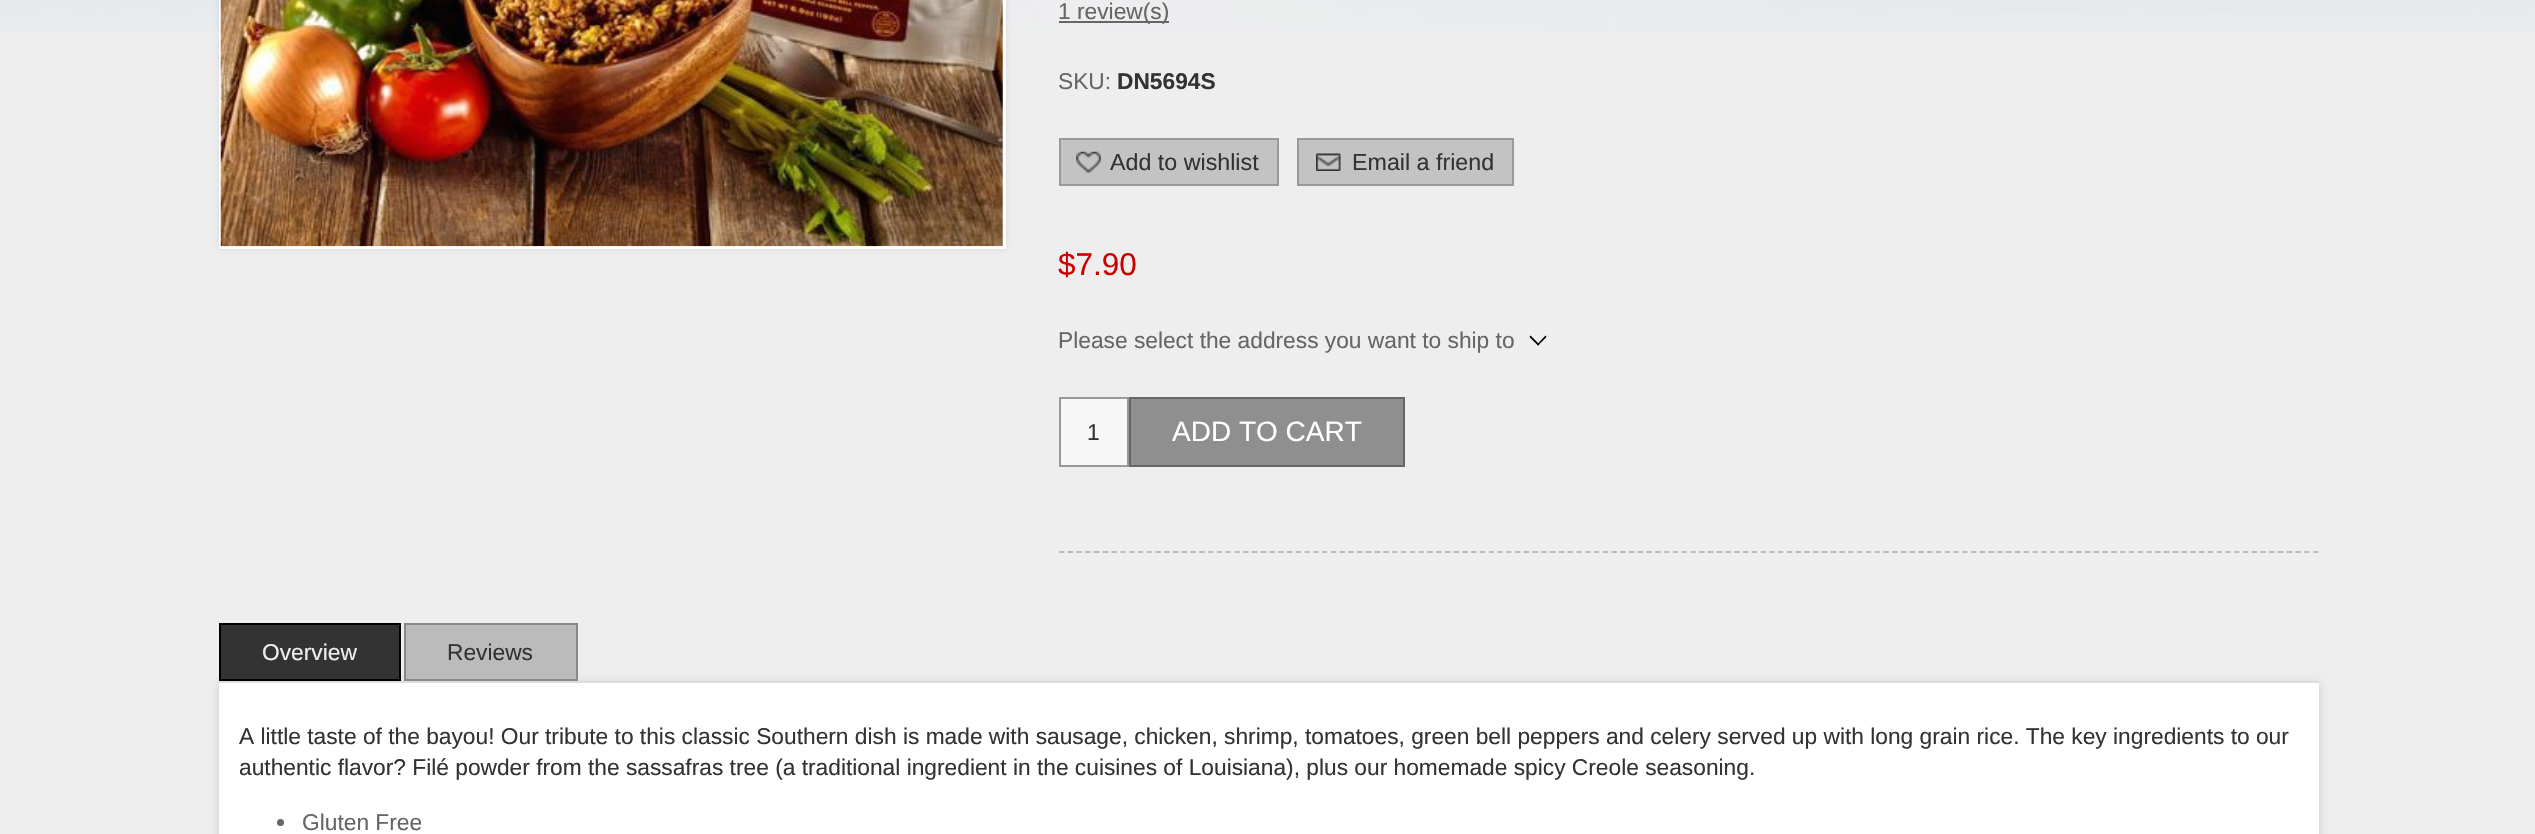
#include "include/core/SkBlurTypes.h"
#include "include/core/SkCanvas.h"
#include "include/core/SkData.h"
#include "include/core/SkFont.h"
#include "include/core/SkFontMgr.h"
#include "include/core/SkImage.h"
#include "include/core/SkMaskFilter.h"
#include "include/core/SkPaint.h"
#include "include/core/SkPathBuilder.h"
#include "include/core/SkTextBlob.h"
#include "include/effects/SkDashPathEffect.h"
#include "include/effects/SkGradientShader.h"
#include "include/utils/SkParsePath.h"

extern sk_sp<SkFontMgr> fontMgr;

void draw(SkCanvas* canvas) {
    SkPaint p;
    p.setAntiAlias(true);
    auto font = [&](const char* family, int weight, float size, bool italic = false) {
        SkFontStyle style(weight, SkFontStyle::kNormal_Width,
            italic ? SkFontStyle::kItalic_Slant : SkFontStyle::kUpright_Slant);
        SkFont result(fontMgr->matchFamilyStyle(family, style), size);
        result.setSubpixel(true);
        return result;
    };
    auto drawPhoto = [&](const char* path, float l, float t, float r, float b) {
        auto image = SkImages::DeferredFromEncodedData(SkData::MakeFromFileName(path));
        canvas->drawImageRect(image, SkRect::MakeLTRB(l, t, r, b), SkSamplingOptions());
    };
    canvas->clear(0xFFEEEEEE);
    drawPhoto("media/1.png", 0, 0, 2535, 32);
    p.setColor(0x1A000000);
    p.setMaskFilter(SkMaskFilter::MakeBlur(kNormal_SkBlurStyle, 2.5f));
    canvas->drawRect(SkRect::MakeLTRB(219, -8, 1006, 249), p);
    p.setMaskFilter(nullptr);
    p.setColor(0xFFFFFFFF);
    canvas->drawRect(SkRect::MakeLTRB(219, 0, 1006, 249), p);
    drawPhoto("media/2.png", 220, 0, 1003, 247);
    p.setStyle(SkPaint::kStroke_Style);
    p.setStrokeWidth(1.8f);
    p.setColor(0xFFBBBBBB);
    p.setPathEffect(SkDashPathEffect::Make({{5.25f, 3.52f}}, 0));
    canvas->drawPath(SkPathBuilder().moveTo(1059, 552).lineTo(2319, 552).detach(), p);
    p.setPathEffect(nullptr);
    p.setStyle(SkPaint::kFill_Style);
    p.setColor(0xFF666666);
    canvas->drawRect(SkRect::MakeLTRB(1059, 21, 1169, 23), p);
    auto font1 = font("Liberation Sans", 400, 22.75f);
    canvas->drawString("1 review(s)", 1058, 19, font1, p);
    canvas->drawString("SKU:", 1058, 89, font1, p);
    auto font2 = font("Liberation Sans", 700, 22.75f);
    p.setColor(0xFF333333);
    canvas->drawString("DN5694S", 1117, 89, font2, p);
    p.setColor(0xFFC3C3C3);
    canvas->drawRect(SkRect::MakeLTRB(1061, 140, 1277, 184), p);
    drawPhoto("media/3.png", 1076, 151, 1101, 173);
    p.setStyle(SkPaint::kStroke_Style);
    p.setStrokeWidth(2);
    p.setColor(0xFF999999);
    canvas->drawRect(SkRect::MakeLTRB(1060, 139, 1278, 185), p);
    auto font3 = font("Liberation Sans", 400, 23.25f);
    p.setStyle(SkPaint::kFill_Style);
    p.setColor(0xFF333333);
    canvas->drawString("Add to wishlist", 1110, 170, font3, p);
    p.setColor(0xFFC3C3C3);
    canvas->drawRect(SkRect::MakeLTRB(1299, 140, 1512, 184), p);
    drawPhoto("media/4.png", 1316, 153, 1341, 171);
    p.setStyle(SkPaint::kStroke_Style);
    p.setColor(0xFF999999);
    canvas->drawRect(SkRect::MakeLTRB(1298, 139, 1513, 185), p);
    p.setStyle(SkPaint::kFill_Style);
    p.setColor(0xFF333333);
    canvas->drawString("Email a friend", 1352, 170, font3, p);
    auto font4 = font("Liberation Sans", 400, 31.5f);
    p.setColor(0xFFCC0000);
    canvas->drawString("$7.90", 1058, 275, font4, p);
    p.setColor(0xFF666666);
    canvas->drawString("Please select the address you want to ship to", 1058, 348, font1, p);
    p.setColor(0xFF000000);
    canvas->drawPath(SkPathBuilder().moveTo(1545.5f, 335.5f).lineTo(1546.5f, 337).lineTo(1538, 345.5f).lineTo(1537, 344.5f).close().detach(), p);
    canvas->drawPath(SkPathBuilder().moveTo(1530.5f, 335.5f).lineTo(1539.5f, 344.5f).lineTo(1538, 345.5f).lineTo(1529.5f, 337).close().detach(), p);
    p.setColor(0xFFF7F7F7);
    canvas->drawRect(SkRect::MakeLTRB(1060, 398, 1128, 466), p);
    p.setStyle(SkPaint::kStroke_Style);
    p.setColor(0xFF999999);
    canvas->drawRect(SkRect::MakeLTRB(1060, 398, 1128, 466), p);
    p.setStyle(SkPaint::kFill_Style);
    p.setColor(0xFF333333);
    canvas->drawString("1", 1087, 440, font1, p);
    p.setColor(0xFF8F8F8F);
    canvas->drawRect(SkRect::MakeLTRB(1130, 398, 1404, 466), p);
    p.setStyle(SkPaint::kStroke_Style);
    p.setColor(0xFF666666);
    canvas->drawRect(SkRect::MakeLTRB(1130, 398, 1404, 466), p);
    auto font5 = font("Liberation Sans", 400, 28);
    p.setStyle(SkPaint::kFill_Style);
    p.setColor(0xFFFFFFFF);
    canvas->drawString("ADD TO CART", 1172, 441, font5, p);
    p.setColor(0x26000000);
    p.setMaskFilter(SkMaskFilter::MakeBlur(kNormal_SkBlurStyle, 4.5f));
    canvas->drawRect(SkRect::MakeLTRB(219, 683, 2319, 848), p);
    p.setMaskFilter(nullptr);
    p.setColor(0xFF333333);
    canvas->drawRect(SkRect::MakeLTRB(220, 624, 400, 680), p);
    p.setStyle(SkPaint::kStroke_Style);
    p.setColor(0xFF000000);
    canvas->drawRect(SkRect::MakeLTRB(220, 624, 400, 680), p);
    p.setStyle(SkPaint::kFill_Style);
    p.setColor(0xFFEEEEEE);
    canvas->drawString("Overview", 262, 660, font1, p);
    p.setColor(0xFFBBBBBB);
    canvas->drawRect(SkRect::MakeLTRB(405, 624, 577, 680), p);
    p.setStyle(SkPaint::kStroke_Style);
    p.setColor(0xFF888888);
    canvas->drawRect(SkRect::MakeLTRB(405, 624, 577, 680), p);
    p.setStyle(SkPaint::kFill_Style);
    p.setColor(0xFF333333);
    canvas->drawString("Reviews", 447, 660, font1, p);
    p.setColor(0xFFFFFFFF);
    canvas->drawRect(SkRect::MakeLTRB(219, 683, 2319, 834), p);
    p.setColor(0xFFDDDDDD);
    canvas->drawRect(SkRect::MakeLTRB(219, 681, 2319, 683), p);
    p.setColor(0xFF333333);
    canvas->drawString("A little taste of the bayou! Our tribute to this classic Southern dish is made with sausage, chicken, shrimp, tomatoes, green bell peppers and celery served up with long grain rice. The key ingredients to our", 239, 744, font1, p);
    canvas->drawString("authentic flavor? Filé powder from the sassafras tree (a traditional ingredient in the cuisines of Louisiana), plus our homemade spicy Creole seasoning.", 239, 775, font1, p);
    p.setColor(0xFF666666);
    canvas->drawCircle(280.5f, 822.5f, 3.5f, p);
    canvas->drawString("Gluten Free", 302, 830, font1, p);
}
